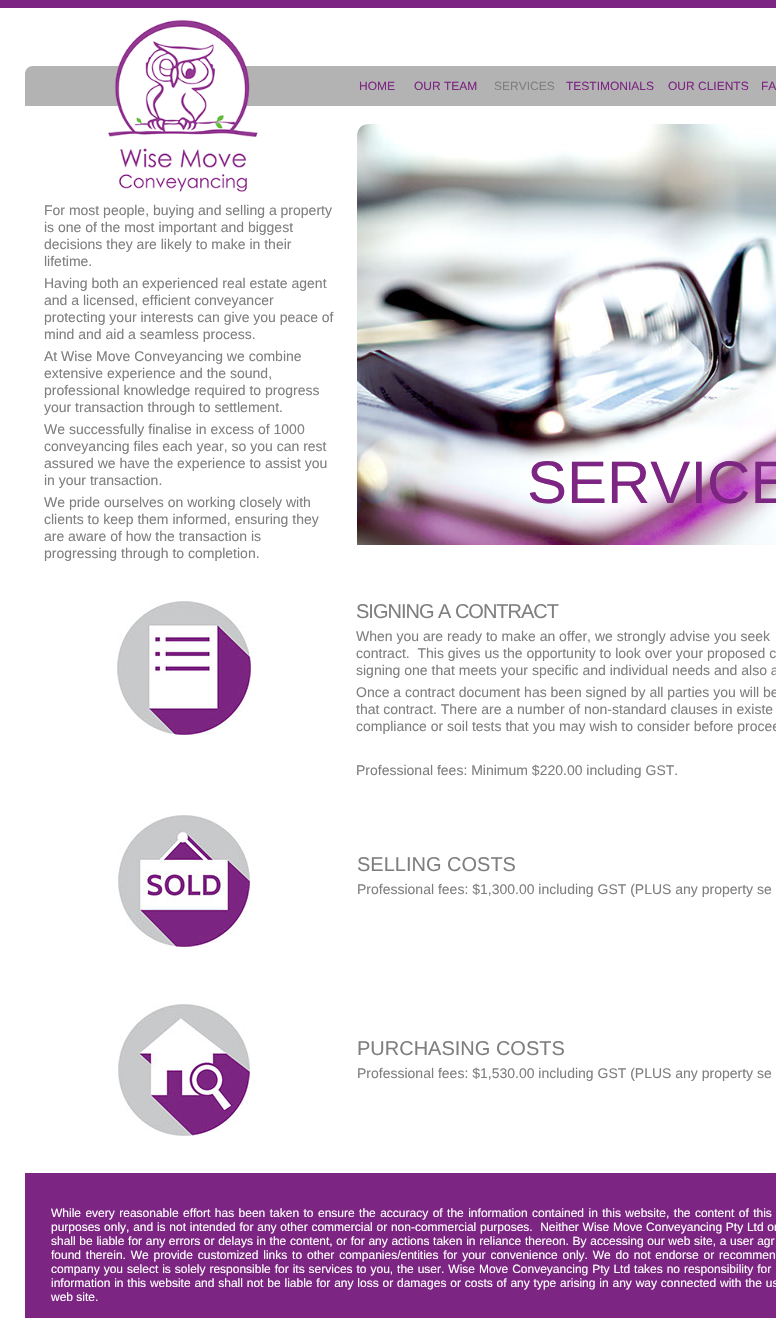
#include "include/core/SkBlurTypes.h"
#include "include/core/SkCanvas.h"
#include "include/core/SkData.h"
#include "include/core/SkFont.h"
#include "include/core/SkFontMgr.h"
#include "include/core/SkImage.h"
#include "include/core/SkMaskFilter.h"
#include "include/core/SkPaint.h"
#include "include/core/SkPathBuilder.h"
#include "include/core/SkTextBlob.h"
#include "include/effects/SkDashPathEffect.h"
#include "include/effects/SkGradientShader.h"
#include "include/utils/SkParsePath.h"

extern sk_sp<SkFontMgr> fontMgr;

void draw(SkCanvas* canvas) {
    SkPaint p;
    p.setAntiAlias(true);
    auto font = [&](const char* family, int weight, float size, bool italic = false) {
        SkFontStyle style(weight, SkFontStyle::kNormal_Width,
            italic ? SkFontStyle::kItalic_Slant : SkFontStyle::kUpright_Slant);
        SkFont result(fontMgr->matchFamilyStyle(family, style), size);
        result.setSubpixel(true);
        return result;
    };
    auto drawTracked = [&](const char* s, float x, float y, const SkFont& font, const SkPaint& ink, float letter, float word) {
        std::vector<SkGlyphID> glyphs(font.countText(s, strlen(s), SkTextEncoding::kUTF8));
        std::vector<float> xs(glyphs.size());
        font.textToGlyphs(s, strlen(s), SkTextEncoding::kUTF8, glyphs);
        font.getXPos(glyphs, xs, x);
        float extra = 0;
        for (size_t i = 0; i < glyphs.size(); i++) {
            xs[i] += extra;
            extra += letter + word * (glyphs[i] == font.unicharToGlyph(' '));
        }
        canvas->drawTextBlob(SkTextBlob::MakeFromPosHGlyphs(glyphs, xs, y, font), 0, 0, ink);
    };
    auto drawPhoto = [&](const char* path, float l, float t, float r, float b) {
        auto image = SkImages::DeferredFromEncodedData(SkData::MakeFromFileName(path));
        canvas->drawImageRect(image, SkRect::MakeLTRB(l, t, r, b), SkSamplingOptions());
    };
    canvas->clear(0xFFFFFFFF);
    p.setColor(0xFF7C2582);
    canvas->drawRect(SkRect::MakeLTRB(0, 0, 776, 8), p);
    p.setColor(0xFFB3B3B3);
    canvas->drawPath(SkPathBuilder().moveTo(33, 66).lineTo(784, 66).lineTo(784, 106).lineTo(25, 106).lineTo(25, 74).cubicTo(25, 69.5f, 28.5f, 66, 33, 66).close().detach(), p);
    drawPhoto("media/1.png", 108, 19, 258, 192);
    auto font1 = font("Liberation Sans", 400, 12);
    p.setColor(0xFF7C2582);
    canvas->drawString("HOME", 359, 90, font1, p);
    canvas->drawString("OUR TEAM", 414, 90, font1, p);
    p.setColor(0xFF7F7F7F);
    canvas->drawString("SERVICES", 494, 90, font1, p);
    p.setColor(0xFF7C2582);
    {
        const struct { const char* s; float x, y; } items[] = {
            {"TESTIMONIALS", 566, 90},
            {"OUR CLIENTS", 668, 90},
            {"FA", 761, 90},
        };
        for (auto [s, x, y] : items) {
            canvas->drawString(s, x, y, font1, p);
        }
    }
    auto font2 = font("Liberation Sans", 400, 14);
    p.setColor(0xFF7F7F7F);
    {
        const struct { const char* s; float x, y; } items[] = {
            {"For most people, buying and selling a property", 44, 215},
            {"is one of the most important and biggest", 44, 232},
            {"decisions they are likely to make in their", 44, 249},
            {"lifetime.", 44, 266},
            {"Having both an experienced real estate agent", 44, 288},
            {"and a licensed, efficient conveyancer", 44, 305},
            {"protecting your interests can give you peace of", 44, 322},
            {"mind and aid a seamless process.", 44, 339},
            {"At Wise Move Conveyancing we combine", 44, 361},
            {"extensive experience and the sound,", 44, 378},
            {"professional knowledge required to progress", 44, 395},
            {"your transaction through to settlement.", 44, 412},
            {"We successfully finalise in excess of 1000", 44, 434},
            {"conveyancing files each year, so you can rest", 44, 451},
            {"assured we have the experience to assist you", 44, 468},
            {"in your transaction.", 44, 485},
            {"We pride ourselves on working closely with", 44, 507},
            {"clients to keep them informed, ensuring they", 44, 524},
            {"are aware of how the transaction is", 44, 541},
            {"progressing through to completion.", 44, 558},
        };
        for (auto [s, x, y] : items) {
            canvas->drawString(s, x, y, font2, p);
        }
    }
    drawPhoto("media/2.png", 357, 124, 776, 545);
    auto font3 = font("Liberation Sans", 400, 60);
    p.setColor(0xFF7C2582);
    canvas->drawString("SERVICE", 527, 503, font3, p);
    drawPhoto("media/3.png", 117, 601, 251, 735);
    auto font4 = font("Liberation Sans", 400, 20);
    p.setColor(0xFF7F7F7F);
    drawTracked("SIGNING A CONTRACT", 356, 618, font4, p, -1, 0);
    {
        const struct { const char* s; float x, y; } items[] = {
            {"When you are ready to make an offer, we strongly advise you seek", 356, 641},
            {"contract.  This gives us the opportunity to look over your proposed c", 356, 658},
            {"signing one that meets your specific and individual needs and also a", 356, 675},
            {"Once a contract document has been signed by all parties you will be", 356, 697},
            {"that contract. There are a number of non-standard clauses in existe", 356, 714},
            {"compliance or soil tests that you may wish to consider before procee", 356, 731},
            {"Professional fees: Minimum $220.00 including GST.", 356, 775},
        };
        for (auto [s, x, y] : items) {
            canvas->drawString(s, x, y, font2, p);
        }
    }
    drawPhoto("media/4.png", 118, 815, 250, 947);
    canvas->drawString("SELLING COSTS", 357, 871, font4, p);
    canvas->drawString("Professional fees: $1,300.00 including GST (PLUS any property se", 357, 894, font2, p);
    drawPhoto("media/5.png", 118, 1004, 250, 1136);
    canvas->drawString("PURCHASING COSTS", 357, 1055, font4, p);
    canvas->drawString("Professional fees: $1,530.00 including GST (PLUS any property se", 357, 1078, font2, p);
    p.setColor(0xFF7C2582);
    canvas->drawRect(SkRect::MakeLTRB(25, 1173, 776, 1318), p);
    p.setColor(0xFFFFFFFF);
    drawTracked("While every reasonable effort has been taken to ensure the accuracy of the information contained in this website, the content of this", 51, 1217, font1, p, 0, 1.1f);
    drawTracked("purposes only, and is not intended for any other commercial or non-commercial purposes.  Neither Wise Move Conveyancing Pty Ltd or", 51, 1231, font1, p, 0, 0.4f);
    drawTracked("shall be liable for any errors or delays in the content, or for any actions taken in reliance thereon. By accessing our web site, a user agr", 51, 1245, font1, p, 0, 0.35f);
    drawTracked("found therein. We provide customized links to other companies/entities for your convenience only. We do not endorse or recommen", 51, 1259, font1, p, 0, 1.5f);
    drawTracked("company you select is solely responsible for its services to you, the user. Wise Move Conveyancing Pty Ltd takes no responsibility for r", 51, 1273, font1, p, 0, 0.6f);
    drawTracked("information in this website and shall not be liable for any loss or damages or costs of any type arising in any way connected with the us", 51, 1287, font1, p, 0, 0.5f);
    canvas->drawString("web site.", 51, 1301, font1, p);
}
